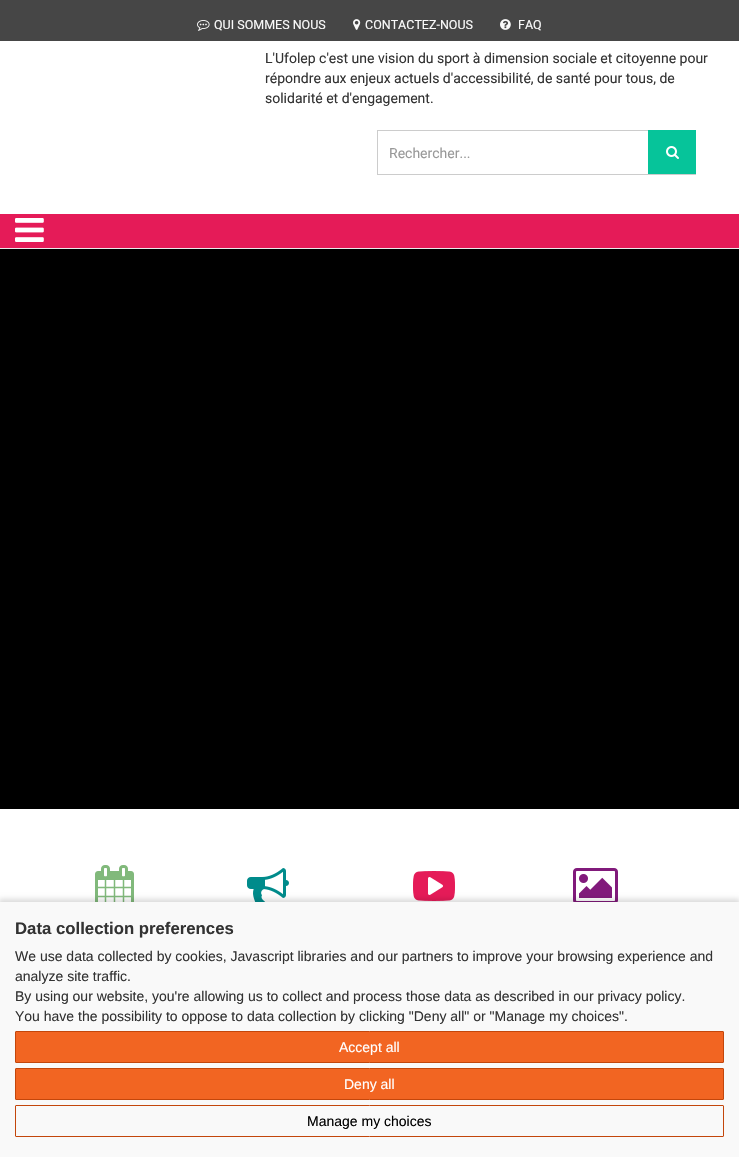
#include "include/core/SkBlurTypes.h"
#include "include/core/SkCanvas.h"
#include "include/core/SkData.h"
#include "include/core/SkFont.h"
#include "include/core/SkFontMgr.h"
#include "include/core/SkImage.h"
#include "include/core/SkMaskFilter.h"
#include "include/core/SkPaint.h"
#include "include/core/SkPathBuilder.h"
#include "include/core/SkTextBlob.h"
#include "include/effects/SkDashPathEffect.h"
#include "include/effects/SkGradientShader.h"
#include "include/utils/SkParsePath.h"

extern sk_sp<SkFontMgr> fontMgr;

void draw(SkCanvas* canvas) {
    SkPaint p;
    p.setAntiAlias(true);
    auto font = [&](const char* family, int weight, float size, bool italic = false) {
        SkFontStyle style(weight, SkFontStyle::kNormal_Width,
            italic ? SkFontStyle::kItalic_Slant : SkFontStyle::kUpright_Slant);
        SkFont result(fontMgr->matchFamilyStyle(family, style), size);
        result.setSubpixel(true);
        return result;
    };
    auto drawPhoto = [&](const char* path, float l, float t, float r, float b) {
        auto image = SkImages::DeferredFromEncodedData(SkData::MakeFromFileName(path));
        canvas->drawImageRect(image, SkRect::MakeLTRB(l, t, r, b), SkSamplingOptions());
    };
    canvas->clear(0xFFFFFFFF);
    p.setColor(0xFF464646);
    canvas->drawRect(SkRect::MakeLTRB(0, 0, 739, 41), p);
    drawPhoto("media/1.png", 197, 20, 210, 31);
    auto font1 = font("Roboto", 400, 12.5f);
    p.setColor(0xFFF9F9F9);
    canvas->drawString("QUI SOMMES NOUS", 214, 29, font1, p);
    drawPhoto("media/2.png", 353, 19, 361, 30);
    canvas->drawString("CONTACTEZ-NOUS", 365, 29, font1, p);
    drawPhoto("media/3.png", 500, 19, 511, 30);
    canvas->drawString("FAQ", 518, 29, font1, p);
    auto font2 = font("Roboto", 400, 14);
    p.setColor(0xFF333333);
    {
        const struct { const char* s; float x, y; } items[] = {
            {"L'Ufolep c'est une vision du sport à dimension sociale et citoyenne pour", 265, 63},
            {"répondre aux enjeux actuels d'accessibilité, de santé pour tous, de", 265, 83},
            {"solidarité et d'engagement.", 265, 103},
        };
        for (auto [s, x, y] : items) {
            canvas->drawString(s, x, y, font2, p);
        }
    }
    p.setStyle(SkPaint::kStroke_Style);
    p.setStrokeWidth(1);
    p.setColor(0xFFCCCCCC);
    canvas->drawRect(SkRect::MakeLTRB(377.5f, 130.5f, 695.5f, 174.5f), p);
    p.setStyle(SkPaint::kFill_Style);
    p.setColor(0xFF999999);
    canvas->drawString("Rechercher...", 389, 158, font2, p);
    p.setColor(0xFF06C49A);
    canvas->drawRect(SkRect::MakeLTRB(648, 130, 696, 174), p);
    drawPhoto("media/4.png", 666, 146, 679, 159);
    p.setColor(0xFFE51B58);
    canvas->drawRect(SkRect::MakeLTRB(0, 214, 739, 248), p);
    p.setColor(0xFFEAEAEA);
    canvas->drawRect(SkRect::MakeLTRB(0, 248, 739, 249), p);
    drawPhoto("media/5.png", 15, 218, 44, 242);
    p.setColor(0xFF000000);
    canvas->drawRect(SkRect::MakeLTRB(0, 249, 739, 809), p);
    drawPhoto("media/6.png", 95, 865, 134, 902);
    drawPhoto("media/7.png", 247, 868, 289, 902);
    drawPhoto("media/8.png", 413, 871, 455, 901);
    drawPhoto("media/9.png", 573, 868, 618, 902);
    p.setColor(0x24000000);
    p.setMaskFilter(SkMaskFilter::MakeBlur(kNormal_SkBlurStyle, 2.5f));
    canvas->drawRect(SkRect::MakeLTRB(-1, 899, 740, 1156), p);
    p.setMaskFilter(nullptr);
    p.setColor(0xFFF9F9F9);
    canvas->drawRect(SkRect::MakeLTRB(0, 902, 739, 1157), p);
    auto font3 = font("Liberation Sans", 700, 16.75f);
    p.setColor(0xFF333333);
    canvas->drawString("Data collection preferences", 15, 934, font3, p);
    auto font4 = font("Liberation Sans", 400, 14);
    {
        const struct { const char* s; float x, y; } items[] = {
            {"We use data collected by cookies, Javascript libraries and our partners to improve your browsing experience and", 15, 961},
            {"analyze site traffic.", 15, 981},
            {"By using our website, you're allowing us to collect and process those data as described in our privacy policy.", 15, 1001},
            {"You have the possibility to oppose to data collection by clicking \"Deny all\" or \"Manage my choices\".", 15, 1021},
        };
        for (auto [s, x, y] : items) {
            canvas->drawString(s, x, y, font4, p);
        }
    }
    p.setColor(0xFFF26522);
    canvas->drawRoundRect(SkRect::MakeLTRB(15.5f, 1031.5f, 723.5f, 1062.5f), 0.5f, 0.5f, p);
    p.setStyle(SkPaint::kStroke_Style);
    p.setColor(0xFFC3460B);
    canvas->drawRoundRect(SkRect::MakeLTRB(15.5f, 1031.5f, 723.5f, 1062.5f), 0.5f, 0.5f, p);
    p.setStyle(SkPaint::kFill_Style);
    p.setColor(0xFFFFFFFF);
    canvas->drawString("Accept all", 339, 1052, font4, p);
    p.setColor(0xFFF26522);
    canvas->drawRoundRect(SkRect::MakeLTRB(15.5f, 1068.5f, 723.5f, 1099.5f), 0.5f, 0.5f, p);
    p.setStyle(SkPaint::kStroke_Style);
    p.setColor(0xFFC3460B);
    canvas->drawRoundRect(SkRect::MakeLTRB(15.5f, 1068.5f, 723.5f, 1099.5f), 0.5f, 0.5f, p);
    p.setStyle(SkPaint::kFill_Style);
    p.setColor(0xFFFFFFFF);
    canvas->drawString("Deny all", 344, 1089, font4, p);
    p.setStyle(SkPaint::kStroke_Style);
    p.setColor(0xFFC3460B);
    canvas->drawRoundRect(SkRect::MakeLTRB(15.5f, 1105.5f, 723.5f, 1136.5f), 0.5f, 0.5f, p);
    p.setStyle(SkPaint::kFill_Style);
    p.setColor(0xFF000000);
    canvas->drawString("Manage my choices", 307, 1126, font4, p);
}
